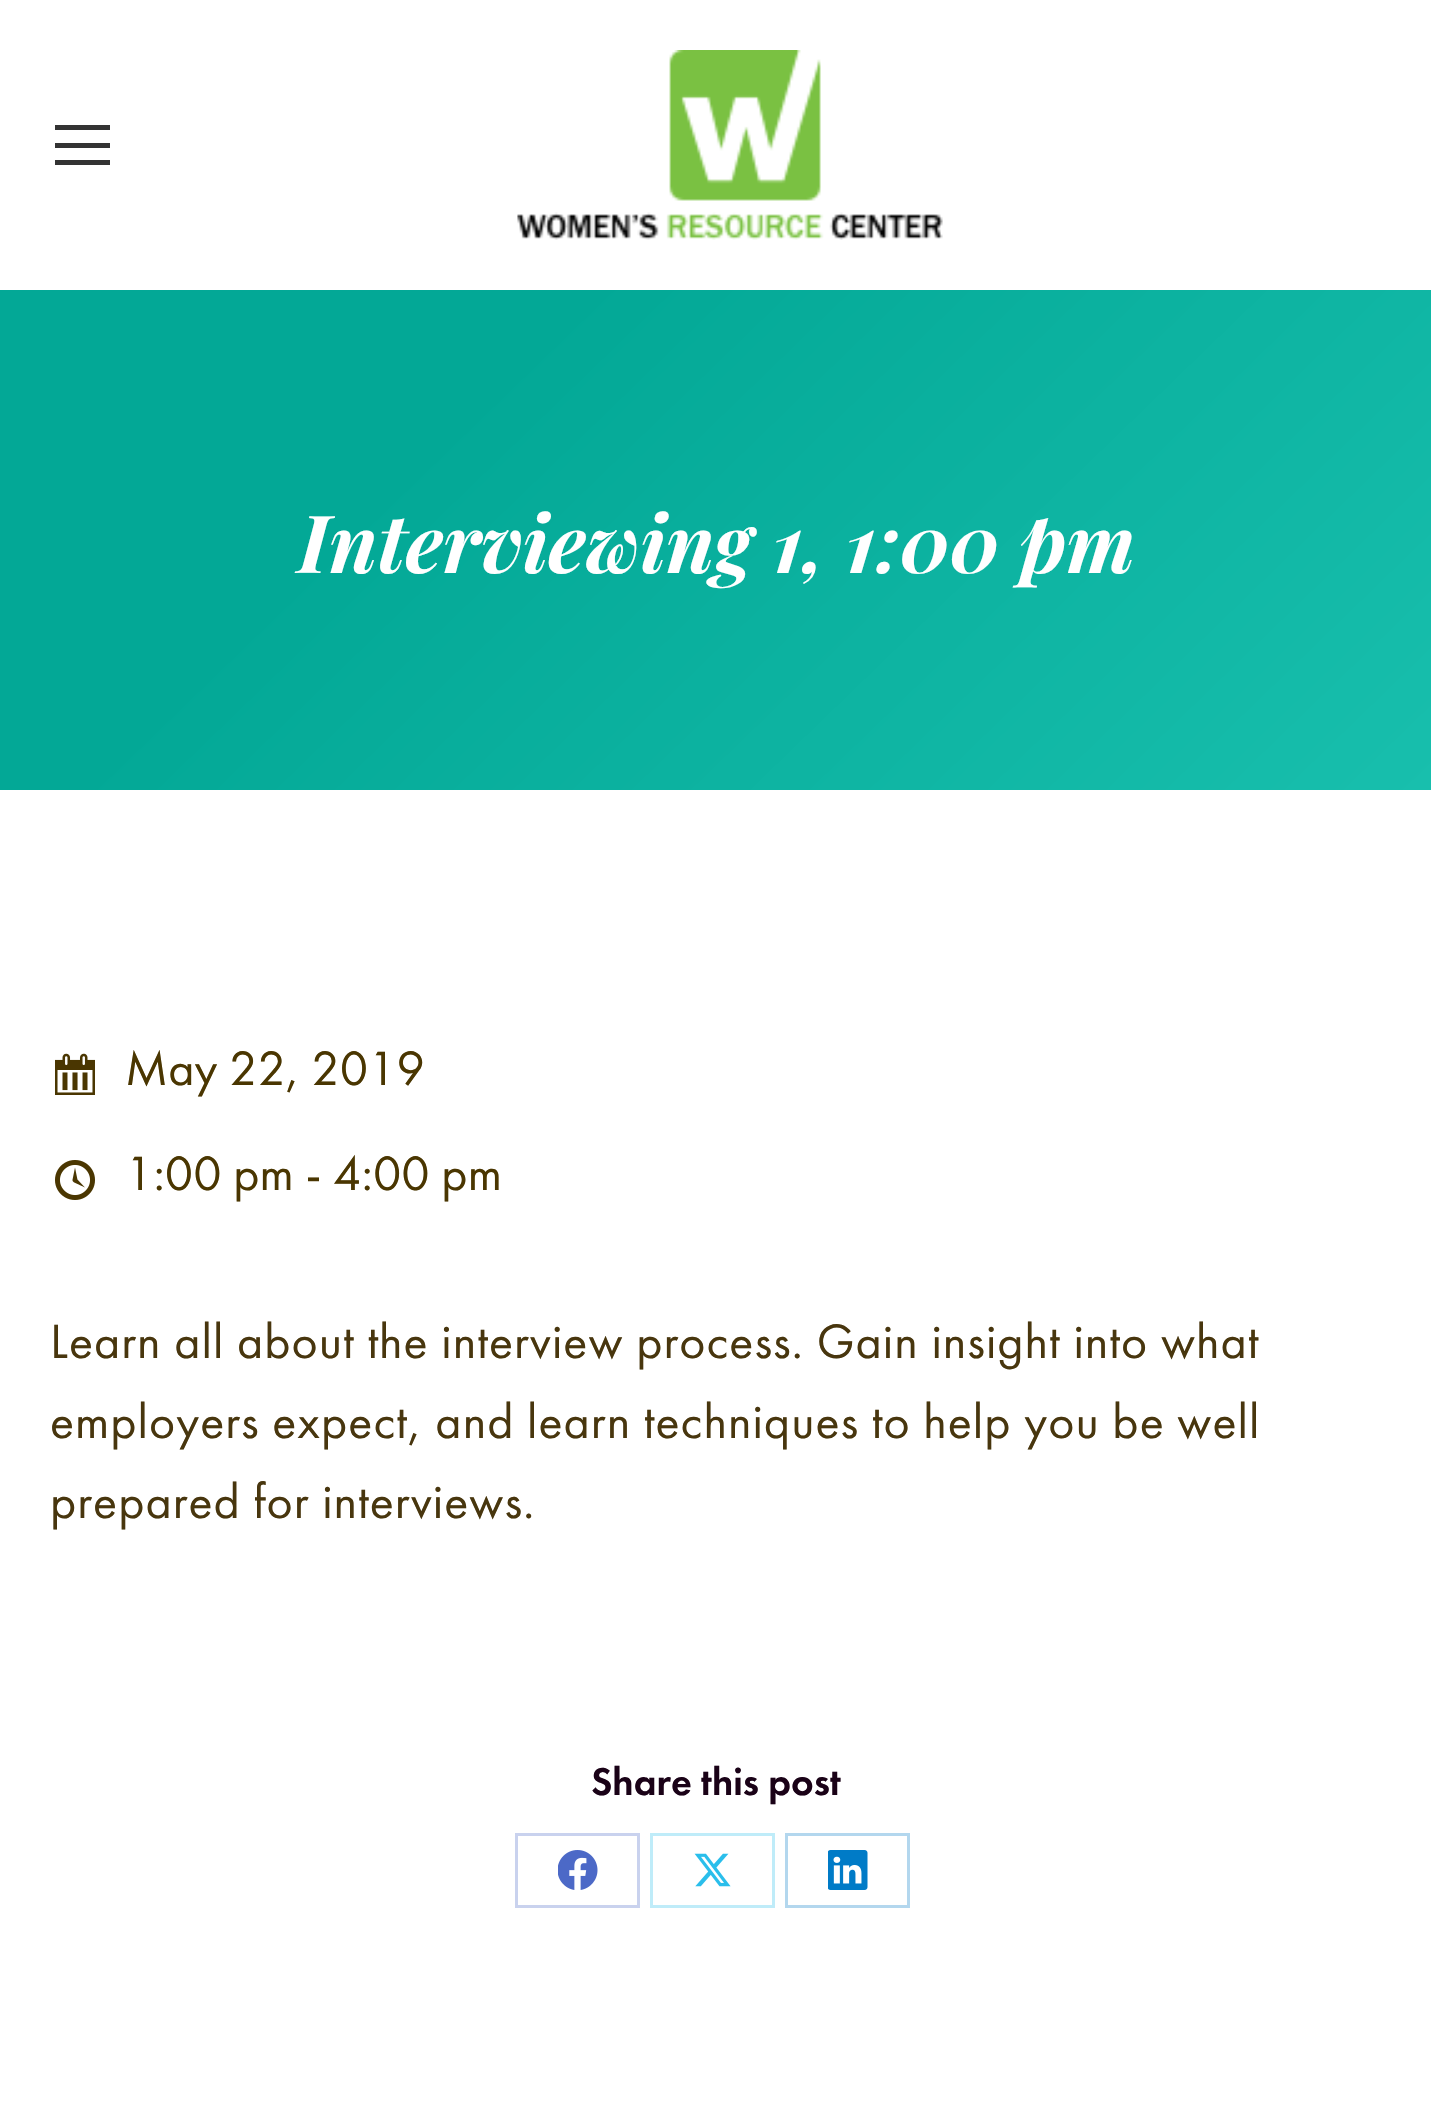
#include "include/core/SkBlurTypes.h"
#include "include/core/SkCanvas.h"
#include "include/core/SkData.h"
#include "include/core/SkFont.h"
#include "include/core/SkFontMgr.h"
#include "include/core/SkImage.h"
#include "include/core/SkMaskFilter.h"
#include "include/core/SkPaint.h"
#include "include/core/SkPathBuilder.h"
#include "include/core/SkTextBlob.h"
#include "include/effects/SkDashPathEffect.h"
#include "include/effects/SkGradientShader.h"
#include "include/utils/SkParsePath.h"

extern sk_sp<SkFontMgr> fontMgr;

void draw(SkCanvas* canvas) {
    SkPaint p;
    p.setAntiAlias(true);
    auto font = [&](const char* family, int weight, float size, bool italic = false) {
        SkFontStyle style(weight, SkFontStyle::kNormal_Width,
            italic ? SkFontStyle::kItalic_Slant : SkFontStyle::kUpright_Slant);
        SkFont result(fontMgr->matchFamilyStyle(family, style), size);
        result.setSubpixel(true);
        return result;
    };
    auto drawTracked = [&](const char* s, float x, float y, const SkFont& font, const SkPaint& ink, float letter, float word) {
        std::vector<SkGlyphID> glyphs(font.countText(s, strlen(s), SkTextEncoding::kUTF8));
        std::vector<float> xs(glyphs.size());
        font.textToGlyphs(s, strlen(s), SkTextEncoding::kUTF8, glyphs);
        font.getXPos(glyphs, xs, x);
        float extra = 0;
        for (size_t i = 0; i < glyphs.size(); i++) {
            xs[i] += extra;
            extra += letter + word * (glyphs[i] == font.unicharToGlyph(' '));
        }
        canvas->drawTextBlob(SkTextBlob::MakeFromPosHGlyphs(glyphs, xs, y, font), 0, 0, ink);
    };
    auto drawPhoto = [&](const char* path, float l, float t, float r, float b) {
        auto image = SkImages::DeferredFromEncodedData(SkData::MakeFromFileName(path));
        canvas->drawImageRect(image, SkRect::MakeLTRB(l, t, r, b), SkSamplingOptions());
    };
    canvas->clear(0xFFFFFFFF);
    {
        const struct { float l, t, r, b; SkColor color; } items[] = {
            {55, 125, 110, 130, 0xFF333333},
            {55, 143, 110, 148, 0xFF333333},
            {55, 160, 110, 165, 0xFF333333},
        };
        for (auto [l, t, r, b, color] : items) {
            p.setColor(color);
            canvas->drawRect(SkRect::MakeLTRB(l, t, r, b), p);
        }
    }
    drawPhoto("media/1.png", 517, 50, 943, 240);
    {
        const SkColor colors[] = {0xFF03A896, 0xFF18BFAD};
        const float stops[] = {0.3f, 1};
        const SkPoint ends[] = {{246, 53}, {1187, 1027}};
        p.setShader(SkGradientShader::MakeLinear(ends, colors, stops, 2, SkTileMode::kClamp));
        p.setAlpha(255);
    }
    canvas->drawRect(SkRect::MakeLTRB(0, 290, 1431, 790), p);
    auto font1 = font("Playfair Display", 700, 80, true);
    p.setShader(nullptr);
    p.setColor(0xFFFFFFFF);
    canvas->drawString("Interviewing 1, 1:00 pm", 298, 573, font1, p);
    drawPhoto("media/2.png", 55, 1053, 95, 1095);
    auto font2 = font("Futura PT", 400, 50);
    p.setColor(0xFF4A3601);
    canvas->drawString("May 22, 2019", 125, 1085, font2, p);
    drawPhoto("media/3.png", 55, 1160, 95, 1200);
    canvas->drawString("1:00 pm - 4:00 pm", 125, 1190, font2, p);
    p.setColor(0xFF48360E);
    {
        const struct { const char* s; float x, y; } items[] = {
            {"Learn all about the interview process. Gain insight into what", 50, 1358},
            {"employers expect, and learn techniques to help you be well", 50, 1438},
            {"prepared for interviews.", 50, 1518},
        };
        for (auto [s, x, y] : items) {
            drawTracked(s, x, y, font2, p, 1, 0);
        }
    }
    auto font3 = font("Futura PT", 500, 40);
    p.setColor(0xFF1A0217);
    canvas->drawString("Share this post", 591, 1795, font3, p);
    p.setStyle(SkPaint::kStroke_Style);
    p.setStrokeWidth(3);
    p.setColor(0xFFC9D2EE);
    canvas->drawRect(SkRect::MakeLTRB(516.5f, 1834.5f, 638.5f, 1906.5f), p);
    drawPhoto("media/4.png", 558, 1850, 598, 1890);
    p.setColor(0xFFBFECF9);
    canvas->drawRect(SkRect::MakeLTRB(651.5f, 1834.5f, 773.5f, 1906.5f), p);
    drawPhoto("media/5.png", 694, 1853, 731, 1887);
    p.setColor(0xFFB3D7EE);
    canvas->drawRect(SkRect::MakeLTRB(786.5f, 1834.5f, 908.5f, 1906.5f), p);
    drawPhoto("media/6.png", 828, 1850, 868, 1890);
}
